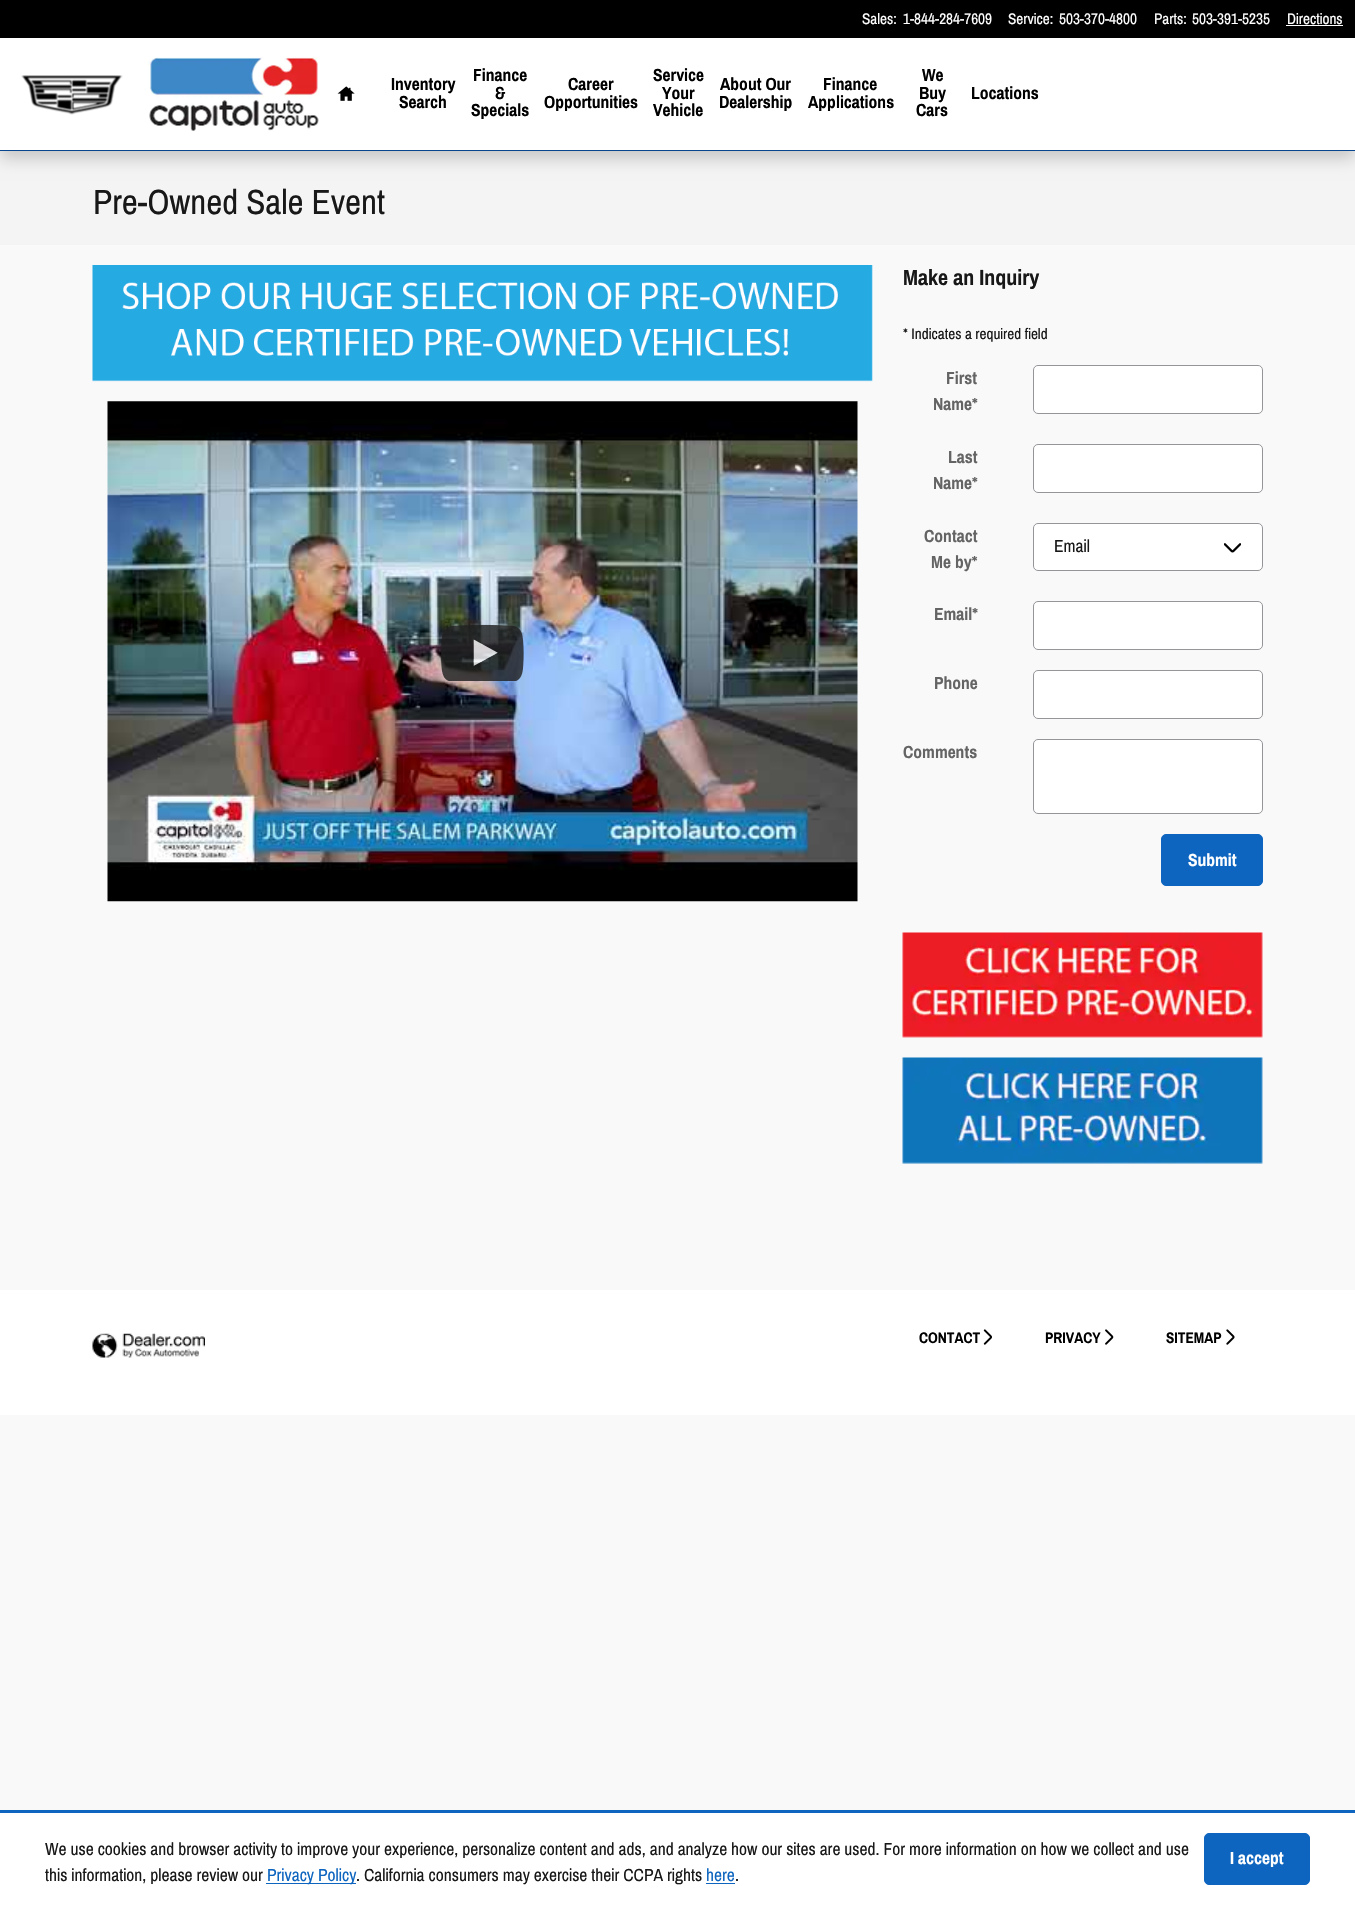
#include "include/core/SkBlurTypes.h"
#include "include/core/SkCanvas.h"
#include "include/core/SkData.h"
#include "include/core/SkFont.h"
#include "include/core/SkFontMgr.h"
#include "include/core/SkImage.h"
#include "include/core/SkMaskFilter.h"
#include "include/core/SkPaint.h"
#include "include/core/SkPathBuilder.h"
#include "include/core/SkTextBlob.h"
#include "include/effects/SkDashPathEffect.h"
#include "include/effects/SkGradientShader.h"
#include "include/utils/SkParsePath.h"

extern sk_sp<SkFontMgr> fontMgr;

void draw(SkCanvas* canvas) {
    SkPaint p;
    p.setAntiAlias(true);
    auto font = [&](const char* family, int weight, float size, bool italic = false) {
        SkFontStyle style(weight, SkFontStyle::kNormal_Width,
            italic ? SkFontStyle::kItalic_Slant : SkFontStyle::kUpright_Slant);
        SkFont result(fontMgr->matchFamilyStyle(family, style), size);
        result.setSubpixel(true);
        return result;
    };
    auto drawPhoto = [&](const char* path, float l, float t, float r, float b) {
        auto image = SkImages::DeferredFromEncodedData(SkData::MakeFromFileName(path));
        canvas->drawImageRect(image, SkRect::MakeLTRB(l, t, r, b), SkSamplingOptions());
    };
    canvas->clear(0xFFF9F9FA);
    p.setColor(0xFFF4F4F4);
    canvas->drawRect(SkRect::MakeLTRB(0, 151, 1355, 245), p);
    p.setColor(0x2E000000);
    p.setMaskFilter(SkMaskFilter::MakeBlur(kNormal_SkBlurStyle, 7.5f));
    canvas->drawRect(SkRect::MakeLTRB(0, 8, 1355, 159), p);
    p.setMaskFilter(nullptr);
    {
        const struct { float l, t, r, b; SkColor color; } items[] = {
            {0, 38, 1355, 150, 0xFFFFFFFF},
            {0, 150, 1355, 151, 0xFF0A468D},
            {0, 0, 1355, 38, 0xFF000000},
        };
        for (auto [l, t, r, b, color] : items) {
            p.setColor(color);
            canvas->drawRect(SkRect::MakeLTRB(l, t, r, b), p);
        }
    }
    auto font1 = font("Archivo Narrow", 400, 15.25f);
    p.setColor(0xFFFFFFFF);
    {
        const struct { const char* s; float x, y; } items[] = {
            {"Sales:", 862, 24},
            {"1-844-284-7609", 903, 24},
            {"Service:", 1008, 24},
            {"503-370-4800", 1059, 24},
            {"Parts:", 1154, 24},
            {"503-391-5235", 1192, 24},
            {"Directions", 1287, 24},
        };
        for (auto [s, x, y] : items) {
            canvas->drawString(s, x, y, font1, p);
        }
    }
    canvas->drawRect(SkRect::MakeLTRB(1286, 25, 1343, 26), p);
    drawPhoto("media/1.png", 21, 75, 123, 115);
    drawPhoto("media/2.png", 147, 57, 319, 131);
    drawPhoto("media/3.png", 337, 86, 355, 101);
    auto font2 = font("Archivo Narrow", 700, 17.5f);
    p.setColor(0xFF000000);
    {
        const struct { const char* s; float x, y; } items[] = {
            {"Inventory", 391, 90},
            {"Search", 399, 108},
            {"Finance", 473, 81},
            {"&", 495, 99},
            {"Specials", 471, 116},
            {"Career", 568, 90},
            {"Opportunities", 544, 108},
            {"Service", 653, 81},
            {"Your", 662, 99},
            {"Vehicle", 653, 116},
            {"About Our", 720, 90},
            {"Dealership", 719, 108},
            {"Finance", 823, 90},
            {"Applications", 808, 108},
            {"We", 922, 81},
            {"Buy", 919, 99},
            {"Cars", 916, 116},
            {"Locations", 971, 99},
        };
        for (auto [s, x, y] : items) {
            canvas->drawString(s, x, y, font2, p);
        }
    }
    auto font3 = font("Archivo Narrow", 400, 35);
    p.setColor(0xFF181818);
    canvas->drawString("Pre-Owned Sale Event", 93, 214, font3, p);
    drawPhoto("media/4.png", 92, 265, 873, 382);
    drawPhoto("media/5.png", 107, 401, 858, 902);
    drawPhoto("media/6.png", 441, 624, 524, 681);
    auto font4 = font("Archivo Narrow", 700, 22);
    canvas->drawString("Make an Inquiry", 903, 285, font4, p);
    canvas->drawString("* Indicates a required field", 903, 339, font1, p);
    p.setColor(0xFF646464);
    canvas->drawString("First", 946, 384, font2, p);
    canvas->drawString("Name*", 933, 410, font2, p);
    p.setColor(0xFFFFFFFF);
    canvas->drawRoundRect(SkRect::MakeLTRB(1033.5f, 365.5f, 1262.5f, 413.5f), 4.5f, 4.5f, p);
    p.setStyle(SkPaint::kStroke_Style);
    p.setStrokeWidth(1);
    p.setColor(0xFF949599);
    canvas->drawRoundRect(SkRect::MakeLTRB(1033.5f, 365.5f, 1262.5f, 413.5f), 4.5f, 4.5f, p);
    p.setStyle(SkPaint::kFill_Style);
    p.setColor(0xFF646464);
    canvas->drawString("Last", 948, 463, font2, p);
    canvas->drawString("Name*", 933, 489, font2, p);
    p.setColor(0xFFFFFFFF);
    canvas->drawRoundRect(SkRect::MakeLTRB(1033.5f, 444.5f, 1262.5f, 492.5f), 4.5f, 4.5f, p);
    p.setStyle(SkPaint::kStroke_Style);
    p.setColor(0xFF949599);
    canvas->drawRoundRect(SkRect::MakeLTRB(1033.5f, 444.5f, 1262.5f, 492.5f), 4.5f, 4.5f, p);
    p.setStyle(SkPaint::kFill_Style);
    p.setColor(0xFF646464);
    canvas->drawString("Contact", 924, 542, font2, p);
    canvas->drawString("Me by*", 931, 568, font2, p);
    p.setColor(0xFFFFFFFF);
    canvas->drawRoundRect(SkRect::MakeLTRB(1033, 523, 1263, 571), 5, 5, p);
    drawPhoto("media/7.png", 1224, 543, 1241, 553);
    p.setStyle(SkPaint::kStroke_Style);
    p.setColor(0xFF949599);
    canvas->drawRoundRect(SkRect::MakeLTRB(1033.5f, 523.5f, 1262.5f, 570.5f), 4.5f, 4.5f, p);
    auto font5 = font("Archivo Narrow", 400, 17.5f);
    p.setStyle(SkPaint::kFill_Style);
    p.setColor(0xFF181818);
    canvas->drawString("Email", 1054, 552, font5, p);
    p.setColor(0xFF646464);
    canvas->drawString("Email*", 934, 620, font2, p);
    p.setColor(0xFFFFFFFF);
    canvas->drawRoundRect(SkRect::MakeLTRB(1033.5f, 601.5f, 1262.5f, 649.5f), 4.5f, 4.5f, p);
    p.setStyle(SkPaint::kStroke_Style);
    p.setColor(0xFF949599);
    canvas->drawRoundRect(SkRect::MakeLTRB(1033.5f, 601.5f, 1262.5f, 649.5f), 4.5f, 4.5f, p);
    p.setStyle(SkPaint::kFill_Style);
    p.setColor(0xFF646464);
    canvas->drawString("Phone", 934, 689, font2, p);
    p.setColor(0xFFFFFFFF);
    canvas->drawRoundRect(SkRect::MakeLTRB(1033.5f, 670.5f, 1262.5f, 718.5f), 4.5f, 4.5f, p);
    p.setStyle(SkPaint::kStroke_Style);
    p.setColor(0xFF949599);
    canvas->drawRoundRect(SkRect::MakeLTRB(1033.5f, 670.5f, 1262.5f, 718.5f), 4.5f, 4.5f, p);
    p.setStyle(SkPaint::kFill_Style);
    p.setColor(0xFF646464);
    canvas->drawString("Comments", 903, 758, font2, p);
    p.setColor(0xFFFFFFFF);
    canvas->drawRoundRect(SkRect::MakeLTRB(1033.5f, 739.5f, 1262.5f, 813.5f), 4.5f, 4.5f, p);
    p.setStyle(SkPaint::kStroke_Style);
    p.setColor(0xFF949599);
    canvas->drawRoundRect(SkRect::MakeLTRB(1033.5f, 739.5f, 1262.5f, 813.5f), 4.5f, 4.5f, p);
    p.setStyle(SkPaint::kFill_Style);
    p.setColor(0xFF0D65BF);
    canvas->drawRoundRect(SkRect::MakeLTRB(1161.5f, 834.5f, 1262.5f, 885.5f), 4.5f, 4.5f, p);
    p.setStyle(SkPaint::kStroke_Style);
    canvas->drawRoundRect(SkRect::MakeLTRB(1161.5f, 834.5f, 1262.5f, 885.5f), 4.5f, 4.5f, p);
    p.setStyle(SkPaint::kFill_Style);
    p.setColor(0xFFFFFFFF);
    canvas->drawString("Submit", 1188, 866, font2, p);
    drawPhoto("media/8.png", 902, 932, 1263, 1038);
    drawPhoto("media/9.png", 902, 1057, 1263, 1164);
    canvas->drawRect(SkRect::MakeLTRB(0, 1290, 1355, 1415), p);
    drawPhoto("media/10.png", 92, 1333, 205, 1358);
    auto font6 = font("Archivo Narrow", 700, 15.25f);
    p.setColor(0xFF000000);
    canvas->drawString("CONTACT", 919, 1343, font6, p);
    drawPhoto("media/11.png", 983, 1329, 992, 1345);
    canvas->drawString("PRIVACY", 1045, 1343, font6, p);
    drawPhoto("media/12.png", 1105, 1329, 1114, 1345);
    canvas->drawString("SITEMAP", 1166, 1343, font6, p);
    drawPhoto("media/13.png", 1226, 1329, 1235, 1345);
    p.setColor(0xFFFFFFFF);
    canvas->drawRect(SkRect::MakeLTRB(0, 1813, 1355, 1914), p);
    p.setColor(0xFF0D65BF);
    canvas->drawRect(SkRect::MakeLTRB(0, 1810, 1355, 1813), p);
    p.setColor(0xFF181818);
    canvas->drawString("We use cookies and browser activity to improve your experience, personalize content and ads, and analyze how our sites are used. For more information on how we collect and use", 45, 1855, font5, p);
    canvas->drawString("this information, please review our", 45, 1881, font5, p);
    p.setColor(0xFF0D65BF);
    canvas->drawRect(SkRect::MakeLTRB(266, 1883, 356, 1884), p);
    canvas->drawString("Privacy Policy", 267, 1881, font5, p);
    p.setColor(0xFF181818);
    canvas->drawString(". California consumers may exercise their CCPA rights", 356, 1881, font5, p);
    p.setColor(0xFF0D65BF);
    canvas->drawString("here", 706, 1881, font5, p);
    canvas->drawRect(SkRect::MakeLTRB(706, 1883, 735, 1884), p);
    p.setColor(0xFF181818);
    canvas->drawString(".", 735, 1881, font5, p);
    p.setColor(0xFF0D65BF);
    canvas->drawRoundRect(SkRect::MakeLTRB(1204.5f, 1833.5f, 1309.5f, 1884.5f), 4.5f, 4.5f, p);
    p.setStyle(SkPaint::kStroke_Style);
    canvas->drawRoundRect(SkRect::MakeLTRB(1204.5f, 1833.5f, 1309.5f, 1884.5f), 4.5f, 4.5f, p);
    p.setStyle(SkPaint::kFill_Style);
    p.setColor(0xFFFFFFFF);
    canvas->drawString("I accept", 1230, 1864, font2, p);
}
